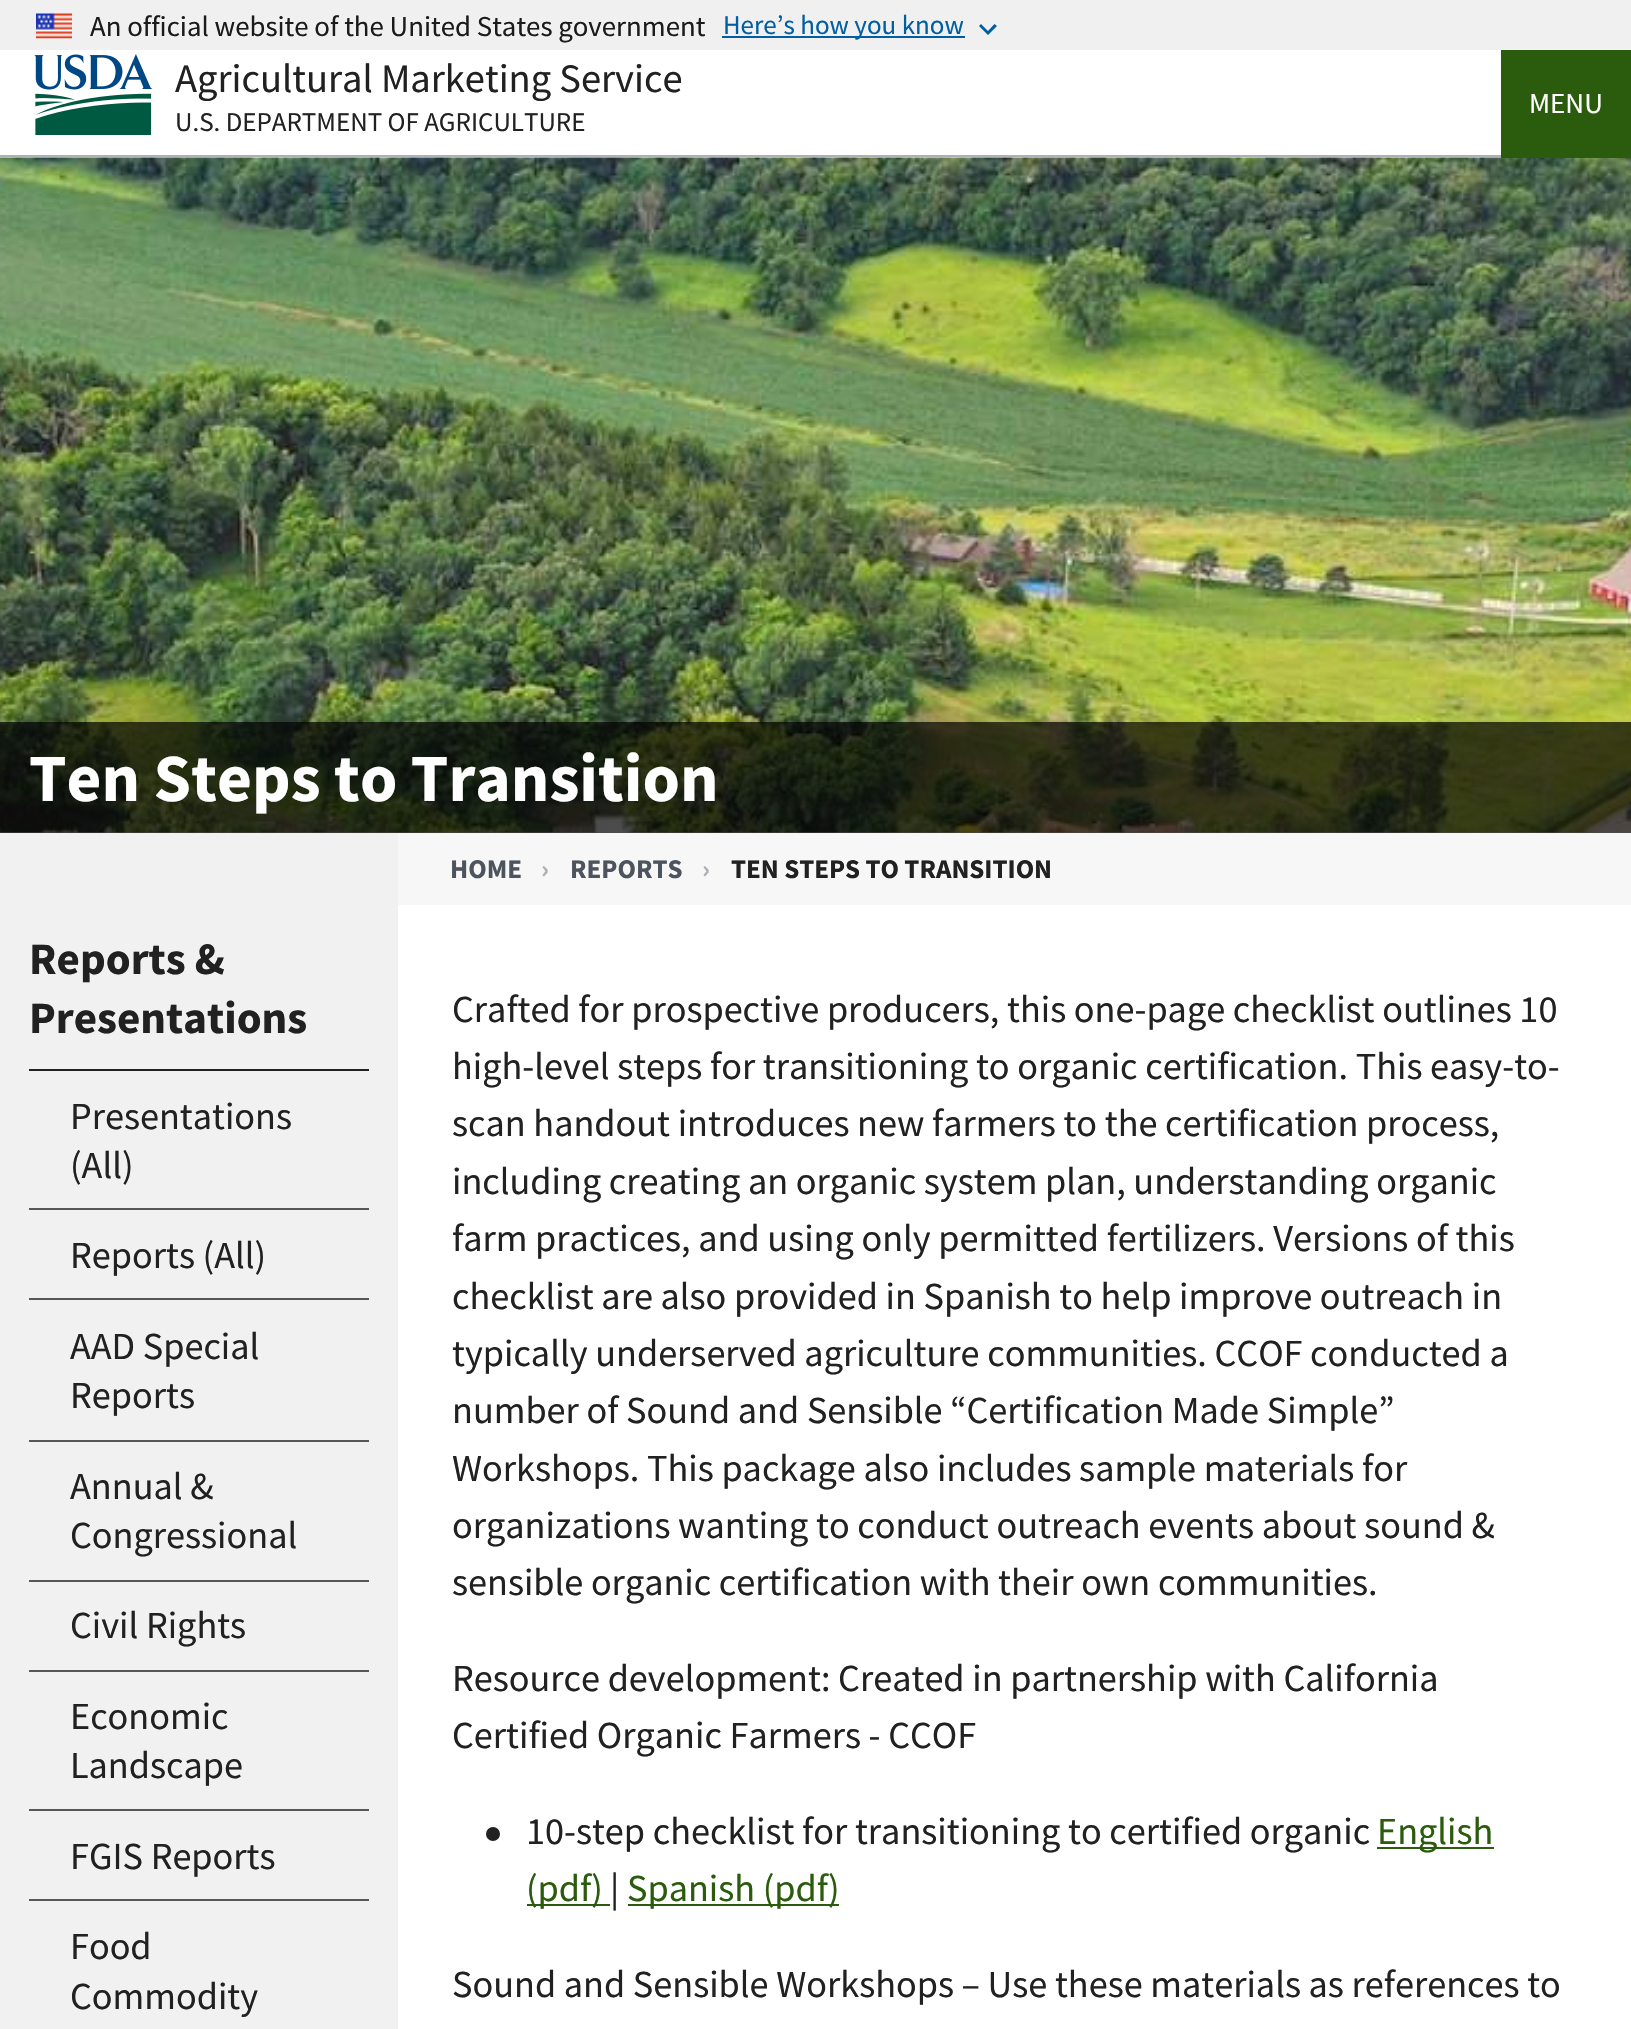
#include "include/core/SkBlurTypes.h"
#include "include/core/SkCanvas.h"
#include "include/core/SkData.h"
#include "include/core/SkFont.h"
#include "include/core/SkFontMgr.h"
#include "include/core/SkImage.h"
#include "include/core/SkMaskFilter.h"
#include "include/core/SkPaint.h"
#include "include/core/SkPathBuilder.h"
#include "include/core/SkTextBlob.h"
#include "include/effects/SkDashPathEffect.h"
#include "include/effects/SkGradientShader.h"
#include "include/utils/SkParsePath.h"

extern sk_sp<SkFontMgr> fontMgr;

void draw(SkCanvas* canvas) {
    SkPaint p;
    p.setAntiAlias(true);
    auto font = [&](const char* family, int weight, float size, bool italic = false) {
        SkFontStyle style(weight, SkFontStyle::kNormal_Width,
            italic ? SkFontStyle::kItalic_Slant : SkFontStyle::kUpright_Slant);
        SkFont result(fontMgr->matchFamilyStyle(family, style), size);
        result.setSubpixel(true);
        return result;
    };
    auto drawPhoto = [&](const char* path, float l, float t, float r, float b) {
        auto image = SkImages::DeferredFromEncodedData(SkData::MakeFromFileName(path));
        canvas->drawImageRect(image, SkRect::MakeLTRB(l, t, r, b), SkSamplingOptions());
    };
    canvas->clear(0xFFFFFFFF);
    p.setColor(0xFFF0F0F0);
    canvas->drawRect(SkRect::MakeLTRB(0, 0, 1631, 50), p);
    drawPhoto("media/1.png", 36, 13, 72, 39);
    auto font1 = font("Source Sans Pro", 400, 28.8f);
    p.setColor(0xFF1B1B1B);
    canvas->drawString("An official website of the United States government", 90, 36, font1, p);
    p.setColor(0xFF005EA2);
    canvas->drawRect(SkRect::MakeLTRB(722, 36, 965, 38), p);
    auto font2 = font("Source Sans Pro", 400, 27);
    canvas->drawString("Here’s how you know", 723, 34, font2, p);
    canvas->drawPath(SkPathBuilder().moveTo(994.5f, 24).lineTo(988, 31).lineTo(981, 24).lineTo(979, 26).lineTo(988, 35).lineTo(997, 26).close().detach(), p);
    p.setColor(0xFFAEB0B5);
    canvas->drawRect(SkRect::MakeLTRB(0, 155, 1501, 157), p);
    drawPhoto("media/2.png", 34, 54, 153, 135);
    auto font3 = font("Source Sans Pro", 400, 40.5f);
    p.setColor(0xFF212121);
    canvas->drawString("Agricultural Marketing Service", 175, 92, font3, p);
    canvas->drawString("U.S. DEPARTMENT OF AGRICULTURE", 175, 131, font2, p);
    drawPhoto("media/3.png", 0, 157, 1631, 833);
    p.setColor(0xFF2B5C0D);
    canvas->drawRect(SkRect::MakeLTRB(1501, 50, 1631, 158), p);
    auto font4 = font("Source Sans Pro", 400, 29);
    p.setColor(0xFFFFFFFF);
    canvas->drawString("MENU", 1529, 113, font4, p);
    p.setColor(0xB3000000);
    canvas->drawRect(SkRect::MakeLTRB(0, 722, 1631, 833), p);
    auto font5 = font("Source Sans Pro", 700, 67.5f);
    p.setColor(0xFFFFFFFF);
    canvas->drawString("Ten Steps to Transition", 29, 801, font5, p);
    p.setColor(0xFFF7F7F7);
    canvas->drawRect(SkRect::MakeLTRB(398, 833, 1631, 905), p);
    auto font6 = font("Source Sans Pro", 700, 27);
    p.setColor(0xFF4E545E);
    canvas->drawString("HOME", 450, 878, font6, p);
    p.setColor(0xFFAEB0B5);
    canvas->drawString("›", 541, 878, font6, p);
    p.setColor(0xFF4E545E);
    canvas->drawString("REPORTS", 570, 878, font6, p);
    p.setColor(0xFFAEB0B5);
    canvas->drawString("›", 702, 878, font6, p);
    p.setColor(0xFF212121);
    canvas->drawString("TEN STEPS TO TRANSITION", 731, 878, font6, p);
    p.setColor(0xFFF1F1F1);
    canvas->drawRect(SkRect::MakeLTRB(0, 833, 398, 2029), p);
    auto font7 = font("Source Sans Pro", 700, 45);
    p.setColor(0xFF212121);
    canvas->drawString("Reports &", 29, 974, font7, p);
    canvas->drawString("Presentations", 29, 1033, font7, p);
    canvas->drawRect(SkRect::MakeLTRB(29, 1069, 369, 1071), p);
    auto font8 = font("Source Sans Pro", 400, 38.25f);
    canvas->drawString("Presentations", 70, 1129, font8, p);
    canvas->drawString("(All)", 70, 1178, font8, p);
    p.setColor(0xFF575757);
    canvas->drawRect(SkRect::MakeLTRB(29, 1208, 369, 1210), p);
    p.setColor(0xFF212121);
    canvas->drawString("Reports (All)", 70, 1268, font8, p);
    p.setColor(0xFF575757);
    canvas->drawRect(SkRect::MakeLTRB(29, 1298, 369, 1300), p);
    p.setColor(0xFF212121);
    canvas->drawString("AAD Special", 70, 1359, font8, p);
    canvas->drawString("Reports", 70, 1408, font8, p);
    p.setColor(0xFF575757);
    canvas->drawRect(SkRect::MakeLTRB(29, 1440, 369, 1442), p);
    p.setColor(0xFF212121);
    canvas->drawString("Annual &", 70, 1499, font8, p);
    canvas->drawString("Congressional", 70, 1548, font8, p);
    p.setColor(0xFF575757);
    canvas->drawRect(SkRect::MakeLTRB(29, 1580, 369, 1582), p);
    p.setColor(0xFF212121);
    canvas->drawString("Civil Rights", 70, 1638, font8, p);
    p.setColor(0xFF575757);
    canvas->drawRect(SkRect::MakeLTRB(29, 1670, 369, 1672), p);
    p.setColor(0xFF212121);
    canvas->drawString("Economic", 70, 1729, font8, p);
    canvas->drawString("Landscape", 70, 1778, font8, p);
    p.setColor(0xFF575757);
    canvas->drawRect(SkRect::MakeLTRB(29, 1809, 369, 1811), p);
    p.setColor(0xFF212121);
    canvas->drawString("FGIS Reports", 70, 1869, font8, p);
    p.setColor(0xFF575757);
    canvas->drawRect(SkRect::MakeLTRB(29, 1899, 369, 1901), p);
    p.setColor(0xFF212121);
    {
        const struct { const char* s; float x, y; } items[] = {
            {"Food", 70, 1959},
            {"Commodity", 70, 2009},
            {"Crafted for prospective producers, this one-page checklist outlines 10", 452, 1022},
            {"high-level steps for transitioning to organic certification. This easy-to-", 452, 1079},
            {"scan handout introduces new farmers to the certification process,", 452, 1136},
            {"including creating an organic system plan, understanding organic", 452, 1194},
            {"farm practices, and using only permitted fertilizers. Versions of this", 452, 1251},
            {"checklist are also provided in Spanish to help improve outreach in", 452, 1309},
            {"typically underserved agriculture communities. CCOF conducted a", 452, 1366},
            {"number of Sound and Sensible “Certification Made Simple”", 452, 1423},
            {"Workshops. This package also includes sample materials for", 452, 1481},
            {"organizations wanting to conduct outreach events about sound &", 452, 1538},
            {"sensible organic certification with their own communities.", 452, 1595},
            {"Resource development: Created in partnership with California", 452, 1691},
            {"Certified Organic Farmers - CCOF", 452, 1748},
        };
        for (auto [s, x, y] : items) {
            canvas->drawString(s, x, y, font8, p);
        }
    }
    canvas->drawCircle(493, 1834, 7, p);
    canvas->drawString("10-step checklist for transitioning to certified organic", 526, 1844, font8, p);
    p.setColor(0xFF2B5C0D);
    canvas->drawRect(SkRect::MakeLTRB(1377, 1847, 1494, 1849), p);
    canvas->drawString("English", 1377, 1844, font8, p);
    canvas->drawRect(SkRect::MakeLTRB(527, 1904, 610, 1906), p);
    canvas->drawString("(pdf)", 526, 1901, font8, p);
    p.setColor(0xFF212121);
    canvas->drawString("|", 610, 1901, font8, p);
    p.setColor(0xFF2B5C0D);
    canvas->drawRect(SkRect::MakeLTRB(628, 1904, 839, 1906), p);
    canvas->drawString("Spanish (pdf)", 627, 1901, font8, p);
    p.setColor(0xFF212121);
    canvas->drawString("Sound and Sensible Workshops – Use these materials as references to", 452, 1997, font8, p);
}
